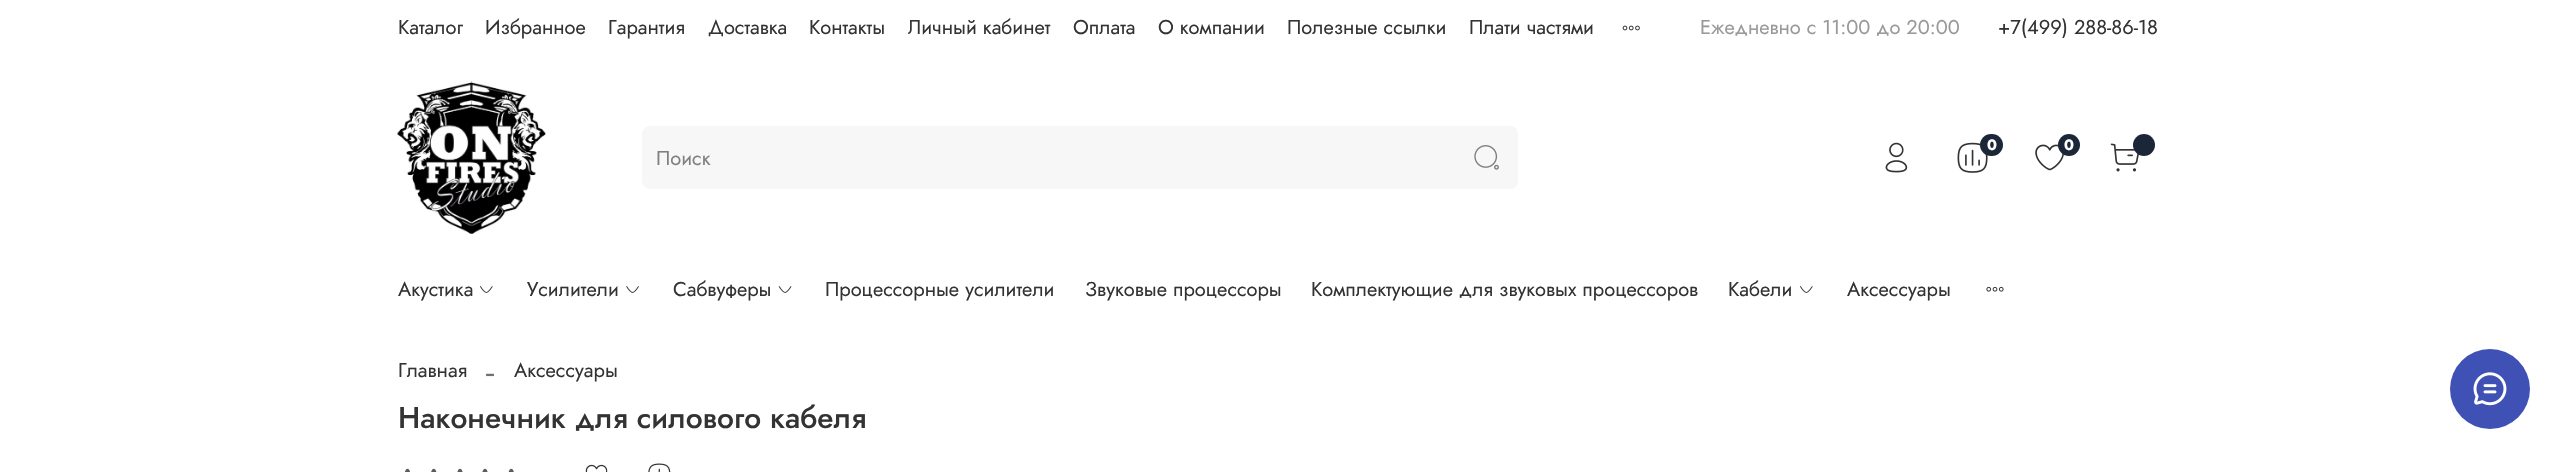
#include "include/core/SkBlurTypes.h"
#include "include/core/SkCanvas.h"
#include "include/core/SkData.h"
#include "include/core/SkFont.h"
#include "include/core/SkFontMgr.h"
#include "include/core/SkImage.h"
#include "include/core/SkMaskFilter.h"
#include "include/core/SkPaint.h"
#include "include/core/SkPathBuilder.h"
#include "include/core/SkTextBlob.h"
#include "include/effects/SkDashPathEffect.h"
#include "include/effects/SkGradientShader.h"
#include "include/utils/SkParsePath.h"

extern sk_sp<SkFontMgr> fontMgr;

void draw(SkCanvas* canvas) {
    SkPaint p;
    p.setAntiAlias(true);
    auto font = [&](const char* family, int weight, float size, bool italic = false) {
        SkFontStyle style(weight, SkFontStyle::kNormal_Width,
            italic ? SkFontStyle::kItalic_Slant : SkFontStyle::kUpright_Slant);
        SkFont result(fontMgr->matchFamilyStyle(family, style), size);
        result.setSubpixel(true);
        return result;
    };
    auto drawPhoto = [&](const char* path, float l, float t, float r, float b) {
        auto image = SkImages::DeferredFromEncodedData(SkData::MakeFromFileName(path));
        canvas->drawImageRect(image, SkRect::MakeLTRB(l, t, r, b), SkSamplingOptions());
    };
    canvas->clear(0xFFFFFFFF);
    auto font1 = font("Jost", 400, 20);
    p.setColor(0xFF333333);
    {
        const struct { const char* s; float x, y; } items[] = {
            {"Каталог", 398, 34},
            {"Избранное", 485, 34},
            {"Гарантия", 608, 34},
            {"Доставка", 708, 34},
            {"Контакты", 809, 34},
            {"Личный кабинет", 908, 34},
            {"Оплата", 1073, 34},
            {"О компании", 1158, 34},
            {"Полезные ссылки", 1287, 34},
            {"Плати частями", 1469, 34},
        };
        for (auto [s, x, y] : items) {
            canvas->drawString(s, x, y, font1, p);
        }
    }
    drawPhoto("media/1.png", 1622, 25, 1640, 31);
    p.setColor(0xFF999999);
    canvas->drawString("Ежедневно с 11:00 до 20:00", 1700, 34, font1, p);
    p.setColor(0xFF333333);
    canvas->drawString("+7(499) 288-86-18", 1998, 34, font1, p);
    drawPhoto("media/2.png", 397, 81, 546, 234);
    drawPhoto("media/3.png", 1885, 142, 1908, 173);
    drawPhoto("media/4.png", 1957, 142, 1988, 173);
    p.setColor(0xFF1B2738);
    canvas->drawRoundRect(SkRect::MakeLTRB(1980, 134, 2003, 156), 11, 11, p);
    auto font2 = font("Jost", 700, 15);
    p.setColor(0xFFFFFFFF);
    canvas->drawString("0", 1987, 150, font2, p);
    drawPhoto("media/5.png", 2035, 144, 2064, 171);
    p.setColor(0xFF1B2738);
    canvas->drawCircle(2069, 145, 11, p);
    p.setColor(0xFFFFFFFF);
    canvas->drawString("0", 2064, 150, font2, p);
    drawPhoto("media/6.png", 2110, 143, 2139, 172);
    p.setColor(0xFF1B2738);
    canvas->drawCircle(2144, 145, 11, p);
    p.setColor(0xFFF7F7F7);
    canvas->drawPath(SkPathBuilder().moveTo(651, 126).lineTo(1455, 126).lineTo(1455, 189).lineTo(651, 189).cubicTo(646.5f, 189, 643, 185.5f, 643, 181).lineTo(643, 134).cubicTo(643, 129.5f, 646.5f, 126, 651, 126).close().detach(), p);
    canvas->drawPath(SkPathBuilder(SkPathFillType::kEvenOdd).moveTo(650, 126).lineTo(1455, 126).lineTo(1455, 189).lineTo(650, 189).cubicTo(646, 189, 642, 185, 642, 181).lineTo(642, 134).cubicTo(642, 130, 646, 126, 650, 126).close().moveTo(650, 128).lineTo(1455, 128).lineTo(1455, 188).lineTo(650, 188).cubicTo(647, 188, 644, 185, 644, 181).lineTo(644, 134).cubicTo(644, 130, 647, 128, 650, 128).close().detach(), p);
    p.setColor(0xFF808080);
    canvas->drawString("Поиск", 656, 165, font1, p);
    p.setColor(0xFFF7F7F7);
    canvas->drawPath(SkPathBuilder().moveTo(1455, 126).lineTo(1510, 126).cubicTo(1514.5f, 126, 1518, 129.5f, 1518, 134).lineTo(1518, 181).cubicTo(1518, 185.5f, 1514.5f, 189, 1510, 189).lineTo(1455, 189).close().detach(), p);
    drawPhoto("media/7.png", 1474, 145, 1499, 170);
    p.setColor(0xFF333333);
    canvas->drawString("Акустика", 398, 296, font1, p);
    drawPhoto("media/8.png", 480, 286, 493, 293);
    canvas->drawString("Усилители", 527, 296, font1, p);
    drawPhoto("media/9.png", 626, 286, 639, 293);
    canvas->drawString("Сабвуферы", 673, 296, font1, p);
    drawPhoto("media/10.png", 778, 286, 792, 293);
    {
        const struct { const char* s; float x, y; } items[] = {
            {"Процессорные усилители", 825, 296},
            {"Звуковые процессоры", 1085, 296},
            {"Комплектующие для звуковых процессоров", 1311, 296},
            {"Кабели", 1728, 296},
        };
        for (auto [s, x, y] : items) {
            canvas->drawString(s, x, y, font1, p);
        }
    }
    drawPhoto("media/8.png", 1800, 286, 1813, 293);
    canvas->drawString("Аксессуары", 1847, 296, font1, p);
    drawPhoto("media/11.png", 1986, 286, 2004, 292);
    canvas->drawString("Главная", 398, 377, font1, p);
    auto font3 = font("Liberation Serif", 400, 30);
    p.setColor(0xFF707070);
    canvas->drawString("-", 485, 382, font3, p);
    p.setColor(0xFF333333);
    canvas->drawString("Аксессуары", 514, 377, font1, p);
    auto font4 = font("Jost", 500, 30);
    canvas->drawString("Наконечник для силового кабеля", 398, 428, font4, p);
    drawPhoto("media/12.png", 404, 468, 411, 472);
    drawPhoto("media/13.png", 431, 468, 437, 472);
    drawPhoto("media/14.png", 457, 468, 463, 472);
    drawPhoto("media/14.png", 482, 468, 488, 472);
    drawPhoto("media/15.png", 508, 468, 514, 472);
    drawPhoto("media/16.png", 585, 464, 608, 472);
    drawPhoto("media/17.png", 648, 463, 671, 472);
    p.setColor(0xFF4051B5);
    canvas->drawCircle(2490, 389, 40, p);
    drawPhoto("media/18.png", 2473, 372, 2507, 406);
}
